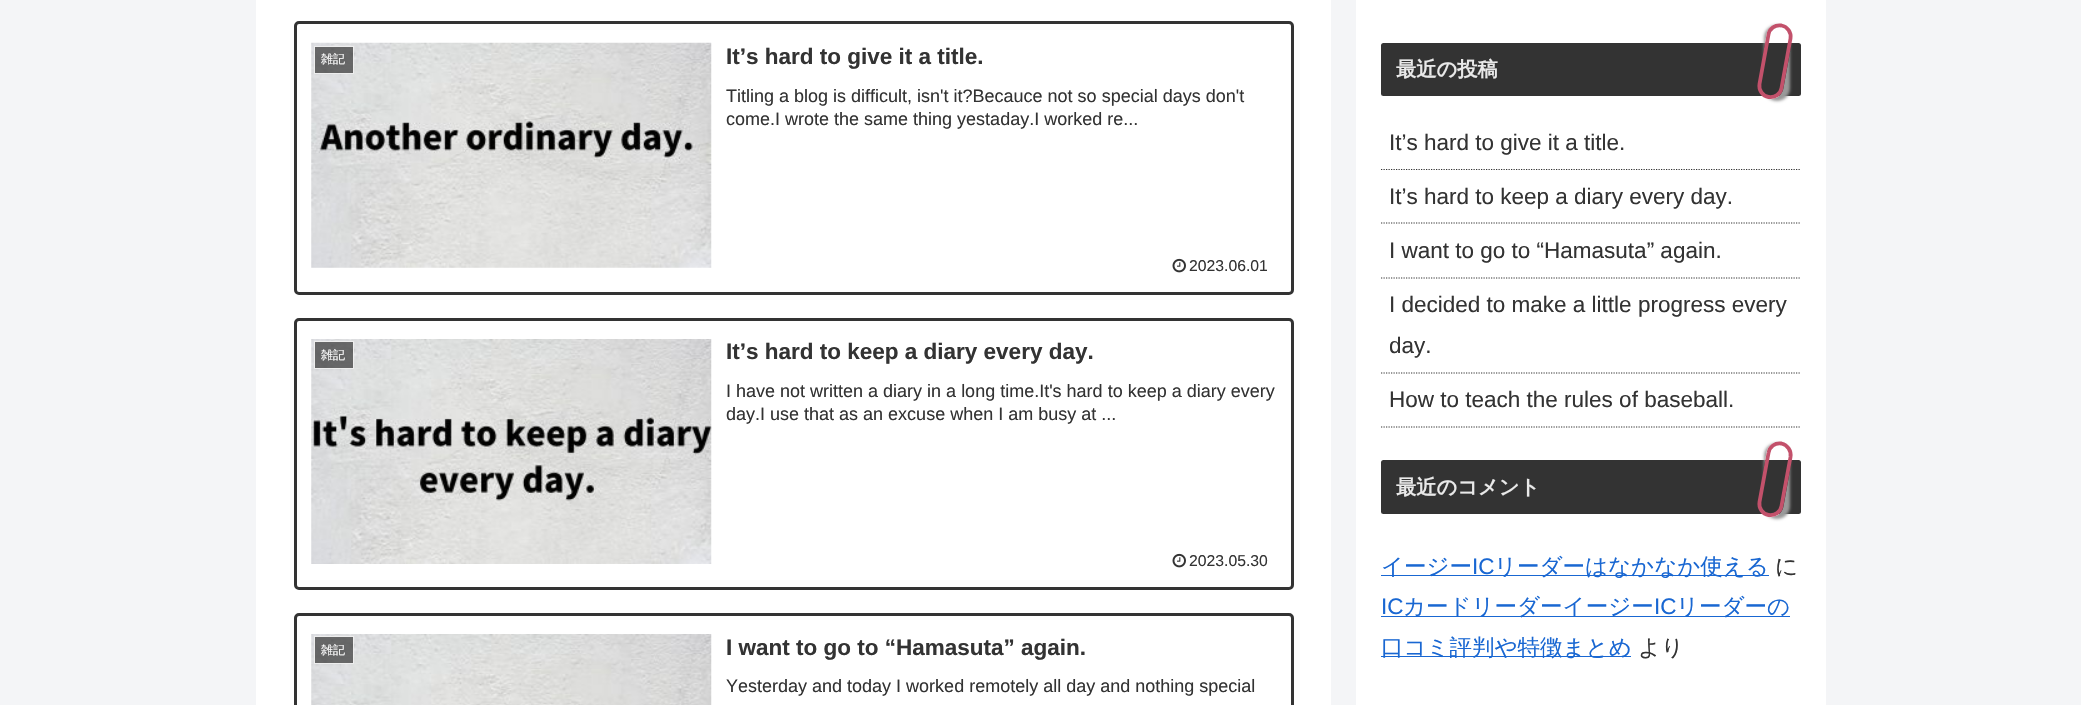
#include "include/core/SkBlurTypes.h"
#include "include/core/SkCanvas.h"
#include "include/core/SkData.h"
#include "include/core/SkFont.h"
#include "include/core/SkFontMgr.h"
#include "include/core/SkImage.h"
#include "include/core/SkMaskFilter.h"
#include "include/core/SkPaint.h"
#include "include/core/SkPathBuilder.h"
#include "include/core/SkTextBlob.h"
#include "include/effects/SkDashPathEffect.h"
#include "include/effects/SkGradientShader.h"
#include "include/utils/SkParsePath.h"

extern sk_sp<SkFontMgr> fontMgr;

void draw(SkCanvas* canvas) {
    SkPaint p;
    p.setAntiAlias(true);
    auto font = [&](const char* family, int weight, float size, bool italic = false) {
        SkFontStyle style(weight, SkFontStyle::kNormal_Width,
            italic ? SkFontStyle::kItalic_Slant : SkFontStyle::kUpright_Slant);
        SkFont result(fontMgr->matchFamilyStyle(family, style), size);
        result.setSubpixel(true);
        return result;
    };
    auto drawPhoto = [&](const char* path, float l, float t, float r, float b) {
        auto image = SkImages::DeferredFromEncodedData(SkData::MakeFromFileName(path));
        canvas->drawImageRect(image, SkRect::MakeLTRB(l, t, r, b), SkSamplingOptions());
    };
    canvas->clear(0xFFF4F5F7);
    p.setColor(0xFFFFFFFF);
    canvas->drawRect(SkRect::MakeLTRB(256, 0, 1331, 705), p);
    p.setStyle(SkPaint::kStroke_Style);
    p.setStrokeWidth(3);
    p.setColor(0xFF333333);
    canvas->drawRoundRect(SkRect::MakeLTRB(295.5f, 22.5f, 1292.5f, 293.5f), 3.5f, 3.5f, p);
    drawPhoto("media/1.png", 311, 42, 712, 268);
    p.setStyle(SkPaint::kFill_Style);
    p.setColor(0xB3333333);
    canvas->drawRect(SkRect::MakeLTRB(314.5f, 46.5f, 353.5f, 73.5f), p);
    p.setStyle(SkPaint::kStroke_Style);
    p.setStrokeWidth(1);
    p.setColor(0xFFEEEEEE);
    canvas->drawRect(SkRect::MakeLTRB(314.5f, 46.5f, 353.5f, 73.5f), p);
    auto font1 = font("WenQuanYi Zen Hei", 500, 12);
    p.setStyle(SkPaint::kFill_Style);
    p.setColor(0xFFFFFFFF);
    canvas->drawString("雑記", 321, 63, font1, p);
    auto font2 = font("Liberation Sans", 700, 22.5f);
    p.setColor(0xFF333333);
    canvas->drawString("It’s hard to give it a title.", 726, 64, font2, p);
    auto font3 = font("Liberation Sans", 400, 18);
    canvas->drawString("Titling a blog is difficult, isn't it?Becauce not so special days don't", 726, 102, font3, p);
    canvas->drawString("come.I wrote the same thing yestaday.I worked re...", 726, 125, font3, p);
    drawPhoto("media/2.png", 1172, 258, 1186, 273);
    auto font4 = font("Liberation Sans", 400, 15.75f);
    canvas->drawString("2023.06.01", 1189, 271, font4, p);
    p.setStyle(SkPaint::kStroke_Style);
    p.setStrokeWidth(3);
    canvas->drawRoundRect(SkRect::MakeLTRB(295.5f, 319.5f, 1292.5f, 588.5f), 3.5f, 3.5f, p);
    drawPhoto("media/3.png", 311, 339, 712, 564);
    p.setStyle(SkPaint::kFill_Style);
    p.setColor(0xB3333333);
    canvas->drawRect(SkRect::MakeLTRB(314.5f, 341.5f, 353.5f, 368.5f), p);
    p.setStyle(SkPaint::kStroke_Style);
    p.setStrokeWidth(1);
    p.setColor(0xFFEEEEEE);
    canvas->drawRect(SkRect::MakeLTRB(314.5f, 341.5f, 353.5f, 368.5f), p);
    p.setStyle(SkPaint::kFill_Style);
    p.setColor(0xFFFFFFFF);
    canvas->drawString("雑記", 321, 359, font1, p);
    p.setColor(0xFF333333);
    canvas->drawString("It’s hard to keep a diary every day.", 726, 359, font2, p);
    canvas->drawString("I have not written a diary in a long time.It's hard to keep a diary every", 726, 397, font3, p);
    canvas->drawString("day.I use that as an excuse when I am busy at ...", 726, 420, font3, p);
    drawPhoto("media/2.png", 1172, 553, 1186, 568);
    canvas->drawString("2023.05.30", 1189, 566, font4, p);
    p.setStyle(SkPaint::kStroke_Style);
    p.setStrokeWidth(3);
    canvas->drawRoundRect(SkRect::MakeLTRB(295.5f, 614.5f, 1292.5f, 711.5f), 3.5f, 3.5f, p);
    drawPhoto("media/4.png", 311, 634, 712, 705);
    p.setStyle(SkPaint::kFill_Style);
    p.setColor(0xB3333333);
    canvas->drawRect(SkRect::MakeLTRB(314.5f, 636.5f, 353.5f, 663.5f), p);
    p.setStyle(SkPaint::kStroke_Style);
    p.setStrokeWidth(1);
    p.setColor(0xFFEEEEEE);
    canvas->drawRect(SkRect::MakeLTRB(314.5f, 636.5f, 353.5f, 663.5f), p);
    p.setStyle(SkPaint::kFill_Style);
    p.setColor(0xFFFFFFFF);
    canvas->drawString("雑記", 321, 654, font1, p);
    p.setColor(0xFF333333);
    canvas->drawString("I want to go to “Hamasuta” again.", 726, 655, font2, p);
    canvas->drawString("Yesterday and today I worked remotely all day and nothing special", 726, 692, font3, p);
    p.setColor(0xFFFFFFFF);
    canvas->drawRect(SkRect::MakeLTRB(1356, 0, 1826, 705), p);
    p.setColor(0xFF333333);
    canvas->drawRoundRect(SkRect::MakeLTRB(1381, 43, 1801, 96), 2.5f, 2.5f, p);
    auto font5 = font("WenQuanYi Zen Hei", 700, 20.25f);
    p.setColor(0xFFE9E9E9);
    canvas->drawString("最近の投稿", 1396, 76, font5, p);
    canvas->save();
    canvas->clipPath(SkPathBuilder(SkPathFillType::kEvenOdd).moveTo(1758, 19).lineTo(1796, 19).lineTo(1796, 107).lineTo(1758, 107).close().moveTo(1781.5f, 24).cubicTo(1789, 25, 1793.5f, 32, 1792.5f, 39).lineTo(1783.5f, 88).cubicTo(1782.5f, 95.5f, 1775.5f, 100, 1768.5f, 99).cubicTo(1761, 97.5f, 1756.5f, 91, 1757.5f, 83.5f).lineTo(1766.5f, 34.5f).cubicTo(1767.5f, 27.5f, 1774.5f, 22.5f, 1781.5f, 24).close().detach(), true);
    p.setColor(0xFF999999);
    p.setMaskFilter(SkMaskFilter::MakeBlur(kNormal_SkBlurStyle, 1.5f));
    canvas->drawRoundRect(SkRect::MakeLTRB(1764, 25, 1790, 101), 13, 13, p);
    p.setMaskFilter(nullptr);
    canvas->restore();
    p.setStyle(SkPaint::kStroke_Style);
    p.setStrokeWidth(3.8f);
    p.setColor(0xFFC3516B);
    canvas->drawPath(SkPathBuilder().moveTo(1781.5f, 25.5f).cubicTo(1787.5f, 26.5f, 1791.5f, 32.5f, 1790.5f, 38.5f).lineTo(1781.5f, 88).cubicTo(1780.5f, 94, 1775, 98, 1768.5f, 97).cubicTo(1762.5f, 96, 1758.5f, 90, 1759.5f, 84).lineTo(1768.5f, 34.5f).cubicTo(1769.5f, 28.5f, 1775, 24.5f, 1781.5f, 25.5f).close().detach(), p);
    p.setStrokeWidth(1.2f);
    p.setColor(0xFF333333);
    p.setPathEffect(SkDashPathEffect::Make({{1.25f, 1.25f}}, 0));
    canvas->drawPath(SkPathBuilder().moveTo(1381, 169.5f).lineTo(1801, 169.5f).detach(), p);
    p.setPathEffect(nullptr);
    auto font6 = font("Liberation Sans", 400, 22.5f);
    p.setStyle(SkPaint::kFill_Style);
    canvas->drawString("It’s hard to give it a title.", 1389, 150, font6, p);
    p.setStyle(SkPaint::kStroke_Style);
    p.setPathEffect(SkDashPathEffect::Make({{1.25f, 1.25f}}, 0));
    canvas->drawPath(SkPathBuilder().moveTo(1381, 223).lineTo(1801, 223).detach(), p);
    p.setPathEffect(nullptr);
    p.setStyle(SkPaint::kFill_Style);
    canvas->drawString("It’s hard to keep a diary every day.", 1389, 204, font6, p);
    p.setStyle(SkPaint::kStroke_Style);
    p.setPathEffect(SkDashPathEffect::Make({{1.25f, 1.25f}}, 0));
    canvas->drawPath(SkPathBuilder().moveTo(1381, 278).lineTo(1801, 278).detach(), p);
    p.setPathEffect(nullptr);
    p.setStyle(SkPaint::kFill_Style);
    canvas->drawString("I want to go to “Hamasuta” again.", 1389, 258, font6, p);
    p.setStyle(SkPaint::kStroke_Style);
    p.setPathEffect(SkDashPathEffect::Make({{1.25f, 1.25f}}, 0));
    canvas->drawPath(SkPathBuilder().moveTo(1381, 373).lineTo(1801, 373).detach(), p);
    p.setPathEffect(nullptr);
    p.setStyle(SkPaint::kFill_Style);
    canvas->drawString("I decided to make a little progress every", 1389, 312, font6, p);
    canvas->drawString("day.", 1389, 353, font6, p);
    p.setStyle(SkPaint::kStroke_Style);
    p.setPathEffect(SkDashPathEffect::Make({{1.25f, 1.25f}}, 0));
    canvas->drawPath(SkPathBuilder().moveTo(1381, 427).lineTo(1801, 427).detach(), p);
    p.setPathEffect(nullptr);
    p.setStyle(SkPaint::kFill_Style);
    canvas->drawString("How to teach the rules of baseball.", 1389, 407, font6, p);
    canvas->drawRoundRect(SkRect::MakeLTRB(1381, 460, 1801, 514), 2.5f, 2.5f, p);
    p.setColor(0xFFE9E9E9);
    canvas->drawString("最近のコメント", 1396, 494, font5, p);
    canvas->save();
    canvas->clipPath(SkPathBuilder(SkPathFillType::kEvenOdd).moveTo(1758, 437).lineTo(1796, 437).lineTo(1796, 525).lineTo(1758, 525).close().moveTo(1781.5f, 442).cubicTo(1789, 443, 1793.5f, 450, 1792.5f, 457).lineTo(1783.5f, 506.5f).cubicTo(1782.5f, 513.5f, 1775.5f, 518, 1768.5f, 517).cubicTo(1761, 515.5f, 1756.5f, 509, 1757.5f, 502).lineTo(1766.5f, 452.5f).cubicTo(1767.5f, 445.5f, 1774.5f, 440.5f, 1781.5f, 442).close().detach(), true);
    p.setColor(0xFF999999);
    p.setMaskFilter(SkMaskFilter::MakeBlur(kNormal_SkBlurStyle, 1.5f));
    canvas->drawRoundRect(SkRect::MakeLTRB(1764, 443, 1790, 519), 13, 13, p);
    p.setMaskFilter(nullptr);
    canvas->restore();
    p.setStyle(SkPaint::kStroke_Style);
    p.setStrokeWidth(3.8f);
    p.setColor(0xFFC3516B);
    canvas->drawPath(SkPathBuilder().moveTo(1781.5f, 443.5f).cubicTo(1787.5f, 445, 1791.5f, 450.5f, 1790.5f, 457).lineTo(1781.5f, 506).cubicTo(1780.5f, 512, 1775, 516, 1768.5f, 515).cubicTo(1762.5f, 514, 1758.5f, 508, 1759.5f, 502).lineTo(1768.5f, 453).cubicTo(1769.5f, 446.5f, 1775, 442.5f, 1781.5f, 443.5f).close().detach(), p);
    p.setStyle(SkPaint::kFill_Style);
    p.setColor(0xFF1967D2);
    canvas->drawRect(SkRect::MakeLTRB(1381, 575, 1769, 576), p);
    auto font7 = font("WenQuanYi Zen Hei", 500, 22.5f);
    canvas->drawString("イージー", 1381, 574, font7, p);
    canvas->drawString("IC", 1472, 574, font6, p);
    canvas->drawString("リーダーはなかなか使える", 1494, 574, font7, p);
    p.setColor(0xFF333333);
    canvas->drawString("に", 1775, 574, font7, p);
    p.setColor(0xFF1967D2);
    canvas->drawString("IC", 1381, 614, font6, p);
    canvas->drawRect(SkRect::MakeLTRB(1381, 616, 1790, 617), p);
    canvas->drawString("カードリーダーイージー", 1403, 614, font7, p);
    canvas->drawString("IC", 1654, 614, font6, p);
    canvas->drawString("リーダーの", 1676, 614, font7, p);
    canvas->drawRect(SkRect::MakeLTRB(1381, 656, 1631, 657), p);
    canvas->drawString("口コミ評判や特徴まとめ", 1381, 655, font7, p);
    p.setColor(0xFF333333);
    canvas->drawString("より", 1638, 655, font7, p);
}
